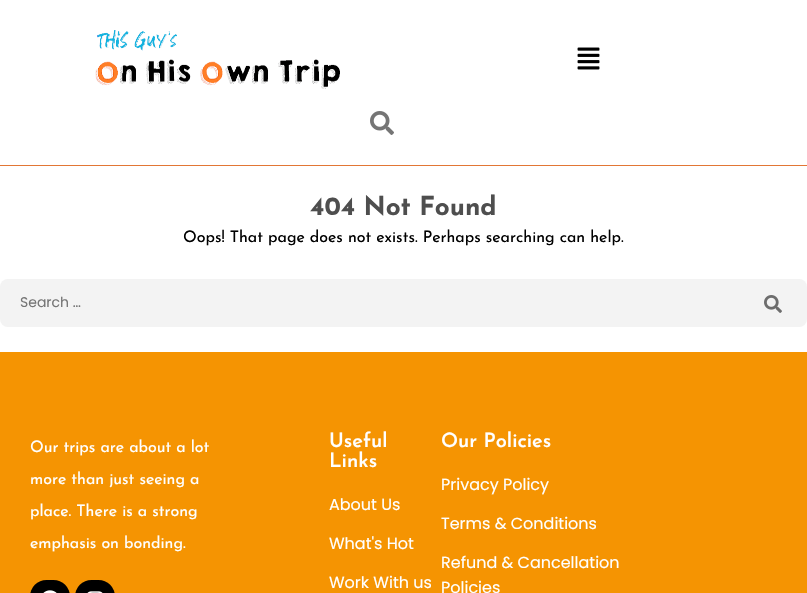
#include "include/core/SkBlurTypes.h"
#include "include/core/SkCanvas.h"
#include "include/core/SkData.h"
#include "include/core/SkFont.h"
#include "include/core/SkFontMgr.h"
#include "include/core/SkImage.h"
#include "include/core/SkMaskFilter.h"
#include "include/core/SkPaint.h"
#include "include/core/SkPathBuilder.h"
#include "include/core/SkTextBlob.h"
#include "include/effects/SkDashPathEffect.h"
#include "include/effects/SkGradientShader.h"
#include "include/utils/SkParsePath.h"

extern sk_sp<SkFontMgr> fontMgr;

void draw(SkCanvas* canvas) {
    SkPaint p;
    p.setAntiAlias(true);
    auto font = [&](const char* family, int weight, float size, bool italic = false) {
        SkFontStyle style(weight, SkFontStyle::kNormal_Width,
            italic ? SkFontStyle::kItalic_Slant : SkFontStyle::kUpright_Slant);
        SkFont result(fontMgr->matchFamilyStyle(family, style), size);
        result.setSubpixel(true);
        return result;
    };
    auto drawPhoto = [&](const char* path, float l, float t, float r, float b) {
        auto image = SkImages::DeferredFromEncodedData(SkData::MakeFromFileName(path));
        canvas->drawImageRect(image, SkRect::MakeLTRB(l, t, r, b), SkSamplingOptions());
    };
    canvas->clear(0xFFFFFFFF);
    p.setColor(0xFFE27635);
    canvas->drawRect(SkRect::MakeLTRB(0, 165, 807, 166), p);
    drawPhoto("media/1.png", 95, 30, 340, 89);
    drawPhoto("media/2.png", 577, 47, 600, 70);
    drawPhoto("media/3.png", 370, 111, 394, 135);
    auto font1 = font("Josefin Sans", 700, 26);
    p.setColor(0xFF4E4E4E);
    canvas->drawString("404 Not Found", 310, 215, font1, p);
    auto font2 = font("Josefin Sans", 400, 16);
    p.setColor(0xFF000000);
    canvas->drawString("Oops! That page does not exists. Perhaps searching can help.", 183, 242, font2, p);
    p.setColor(0xFFF3F3F3);
    canvas->drawRoundRect(SkRect::MakeLTRB(0, 279, 807, 327), 8, 8, p);
    auto font3 = font("Poppins", 400, 14);
    p.setColor(0xFF757575);
    canvas->drawString("Search …", 20, 307, font3, p);
    drawPhoto("media/4.png", 764, 295, 782, 313);
    p.setColor(0xFFF59402);
    canvas->drawRect(SkRect::MakeLTRB(0, 352, 807, 593), p);
    p.setColor(0xFFFFFFFF);
    {
        const struct { const char* s; float x, y; } items[] = {
            {"Our trips are about a lot", 30, 452},
            {"more than just seeing a", 30, 484},
            {"place. There is a strong", 30, 516},
            {"emphasis on bonding.", 30, 548},
        };
        for (auto [s, x, y] : items) {
            canvas->drawString(s, x, y, font2, p);
        }
    }
    p.setColor(0xFF000000);
    canvas->drawRoundRect(SkRect::MakeLTRB(30, 580, 70, 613), 20, 20, p);
    drawPhoto("media/5.png", 43, 590, 57, 593);
    canvas->drawRoundRect(SkRect::MakeLTRB(75, 580, 115, 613), 20, 20, p);
    drawPhoto("media/6.png", 87, 591, 103, 593);
    auto font4 = font("Josefin Sans", 600, 20);
    p.setColor(0xFFFFFFFF);
    canvas->drawString("Useful", 329, 447, font4, p);
    canvas->drawString("Links", 329, 467, font4, p);
    auto font5 = font("Poppins", 400, 16);
    {
        const struct { const char* s; float x, y; } items[] = {
            {"About Us", 329, 510},
            {"What's Hot", 329, 549},
            {"Work With us", 329, 588},
        };
        for (auto [s, x, y] : items) {
            canvas->drawString(s, x, y, font5, p);
        }
    }
    canvas->drawString("Our Policies", 441, 447, font4, p);
    {
        const struct { const char* s; float x, y; } items[] = {
            {"Privacy Policy", 441, 490},
            {"Terms & Conditions", 441, 529},
            {"Refund & Cancellation", 441, 568},
            {"Policies", 441, 593},
        };
        for (auto [s, x, y] : items) {
            canvas->drawString(s, x, y, font5, p);
        }
    }
}
